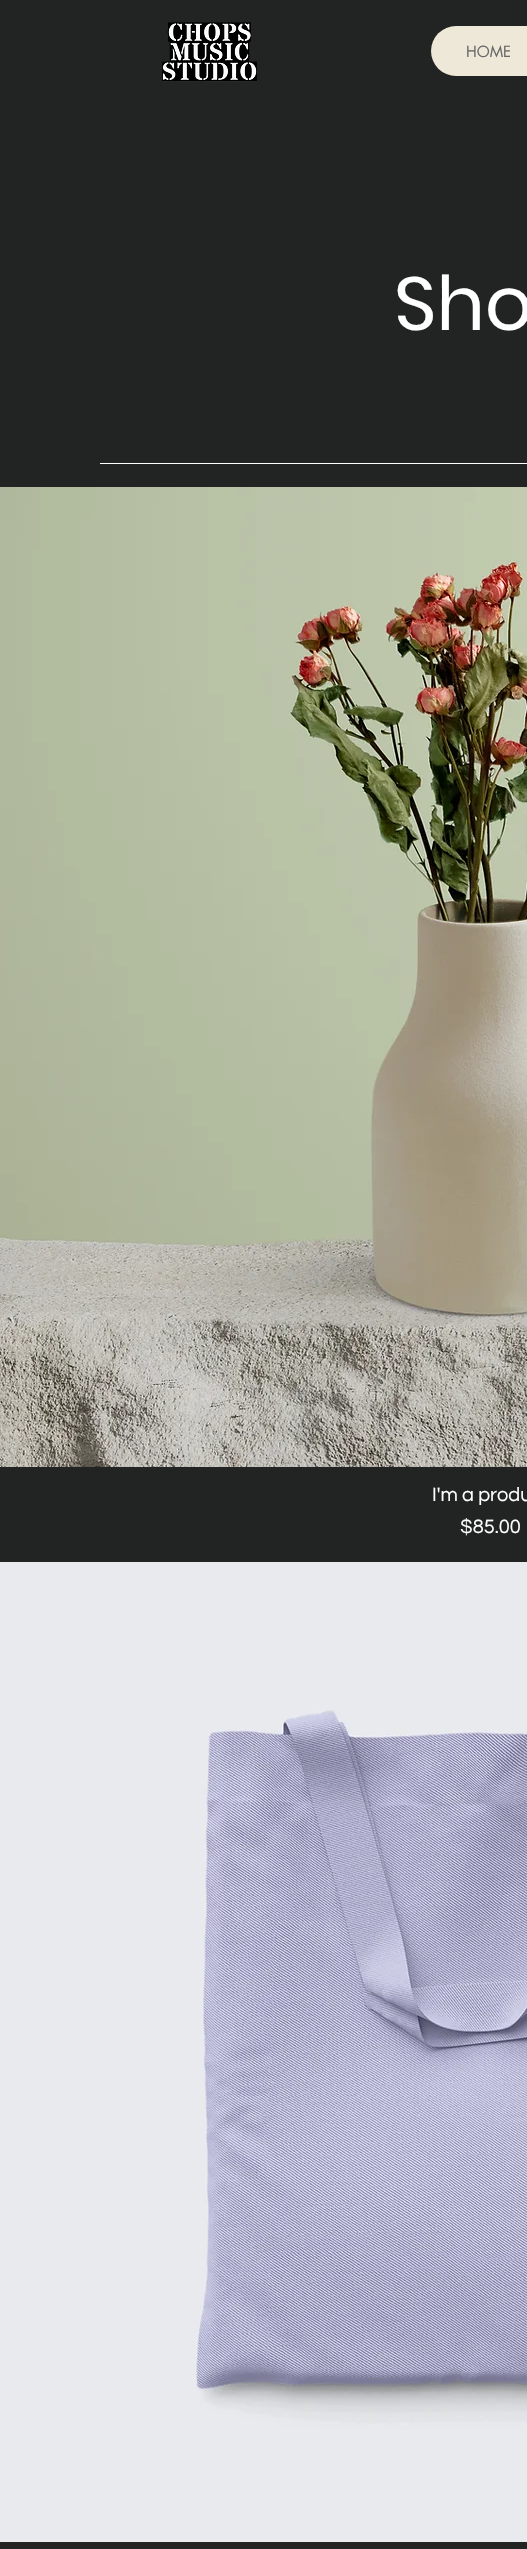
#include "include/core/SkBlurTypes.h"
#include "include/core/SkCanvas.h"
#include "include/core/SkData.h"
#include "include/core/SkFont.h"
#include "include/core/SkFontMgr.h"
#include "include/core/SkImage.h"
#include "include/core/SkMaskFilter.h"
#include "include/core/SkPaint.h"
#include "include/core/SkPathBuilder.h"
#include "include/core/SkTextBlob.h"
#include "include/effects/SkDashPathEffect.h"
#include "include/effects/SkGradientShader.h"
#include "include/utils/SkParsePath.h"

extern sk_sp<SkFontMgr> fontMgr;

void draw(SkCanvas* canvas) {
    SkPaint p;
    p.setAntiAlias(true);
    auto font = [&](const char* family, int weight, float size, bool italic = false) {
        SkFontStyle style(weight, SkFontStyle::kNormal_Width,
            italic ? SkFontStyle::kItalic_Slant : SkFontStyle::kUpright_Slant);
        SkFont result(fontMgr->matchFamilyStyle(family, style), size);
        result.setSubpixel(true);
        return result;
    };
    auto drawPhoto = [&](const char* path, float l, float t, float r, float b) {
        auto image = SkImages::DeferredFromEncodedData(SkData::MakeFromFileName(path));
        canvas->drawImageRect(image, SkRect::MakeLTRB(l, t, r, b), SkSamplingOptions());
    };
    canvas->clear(0xFF222323);
    drawPhoto("media/1.png", 162, 22, 257, 82);
    p.setColor(0xFFEEE8D8);
    canvas->drawRoundRect(SkRect::MakeLTRB(431, 26, 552, 76), 25, 25, p);
    auto font1 = font("futura", 400, 15);
    p.setColor(0xFF696969);
    canvas->drawString("HOME", 466, 57, font1, p);
    auto font2 = font("Poppins", 400, 75);
    p.setColor(0xFFFFFFFF);
    canvas->drawString("Sho", 394, 330, font2, p);
    canvas->drawRect(SkRect::MakeLTRB(100, 463, 527, 464), p);
    drawPhoto("media/2.png", 0, 487, 527, 1467);
    auto font3 = font("Questrial", 400, 20);
    canvas->drawString("I'm a produ", 432, 1501, font3, p);
    canvas->drawString("$85.00", 460, 1533, font3, p);
    drawPhoto("media/3.png", 0, 1562, 527, 2542);
}
